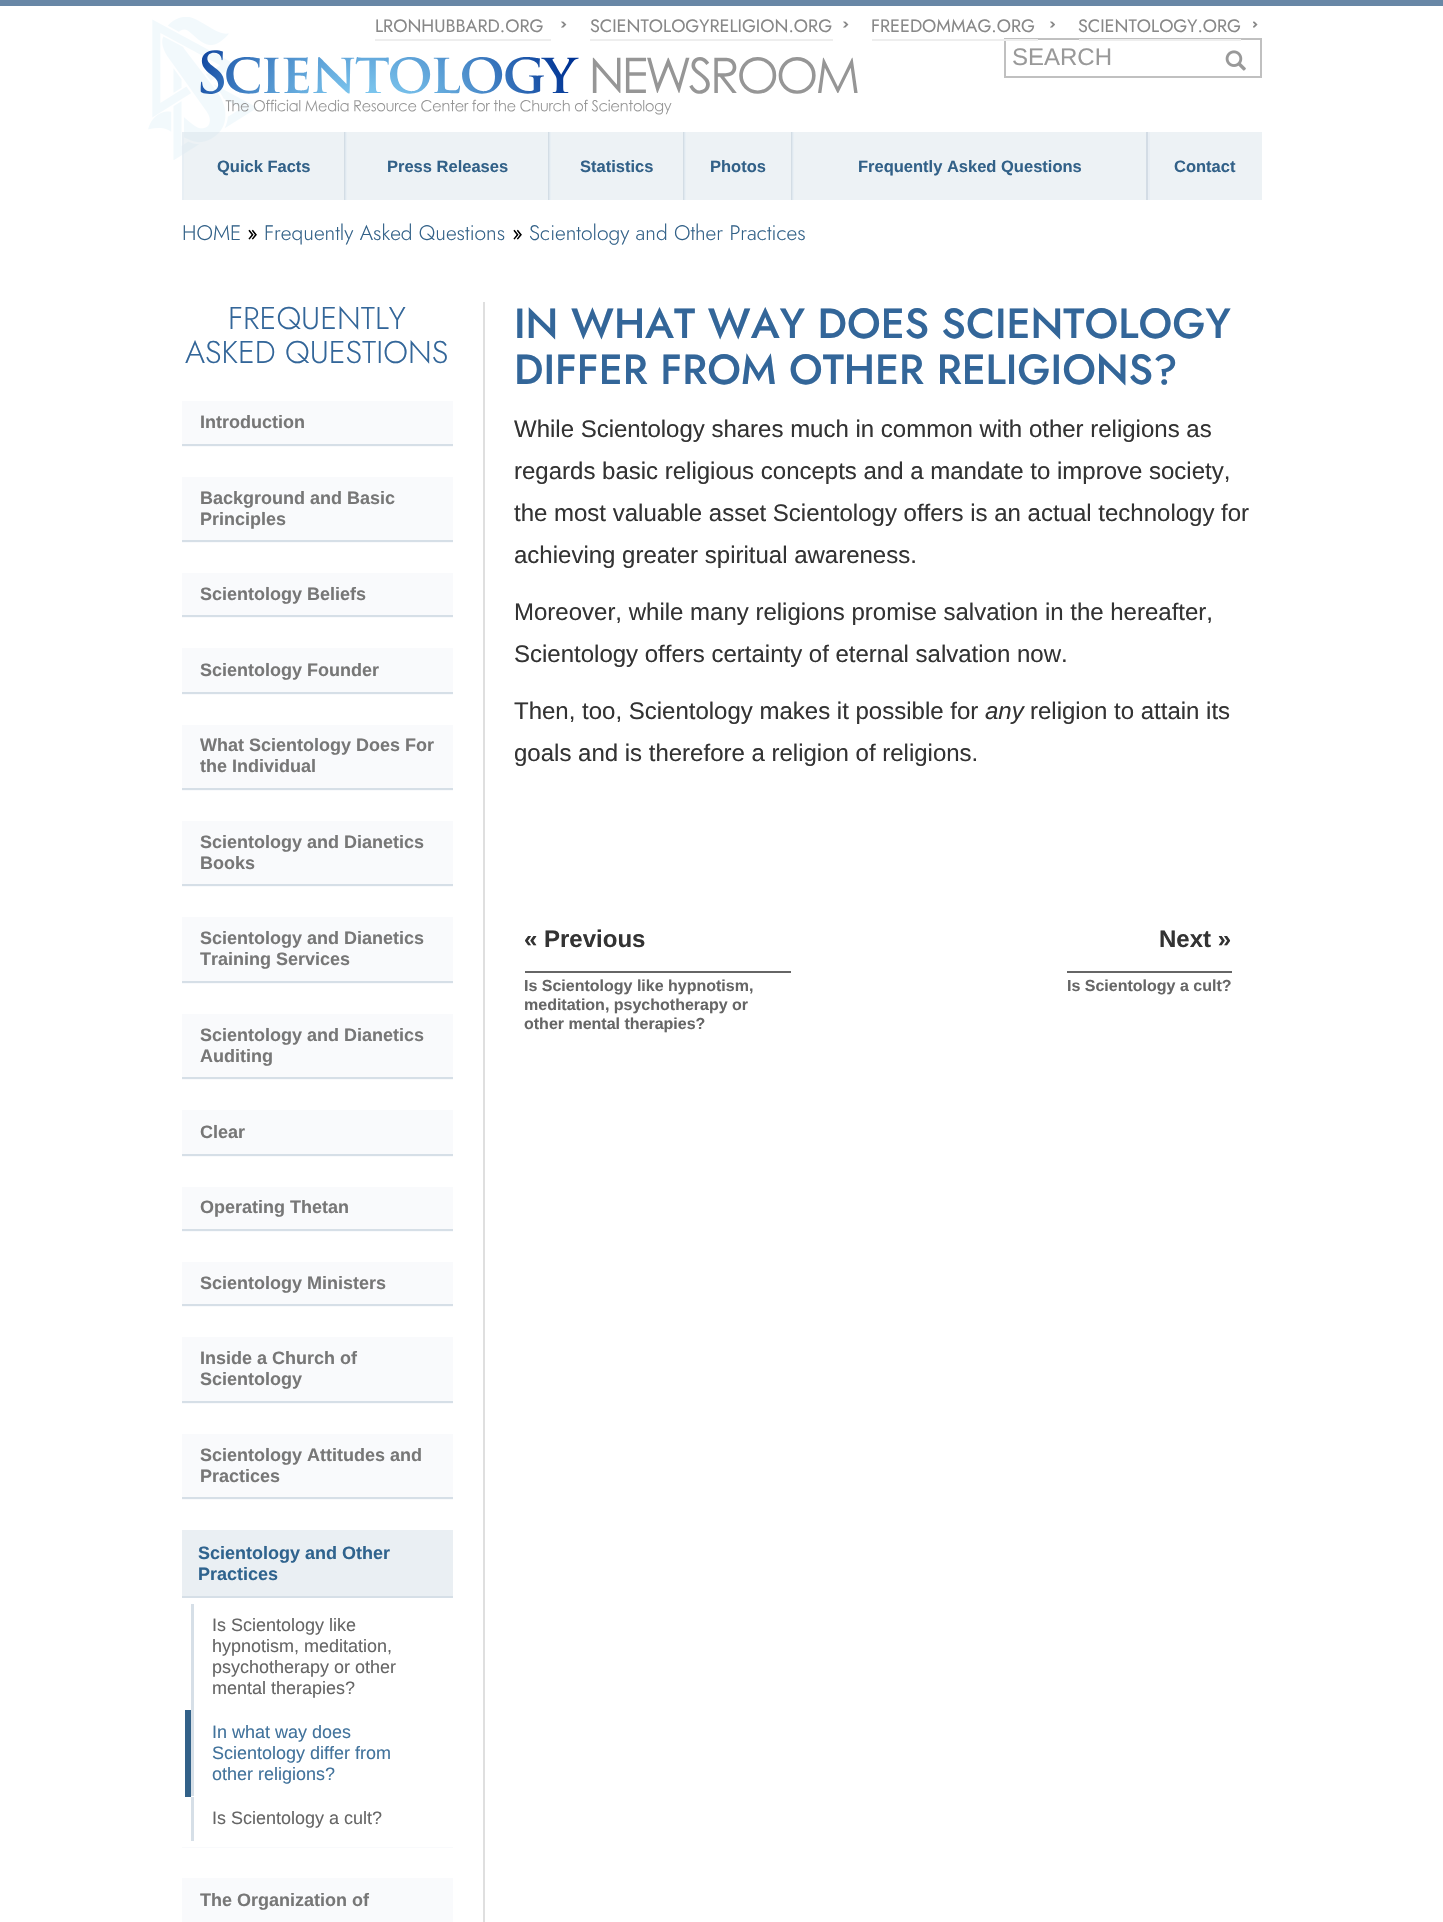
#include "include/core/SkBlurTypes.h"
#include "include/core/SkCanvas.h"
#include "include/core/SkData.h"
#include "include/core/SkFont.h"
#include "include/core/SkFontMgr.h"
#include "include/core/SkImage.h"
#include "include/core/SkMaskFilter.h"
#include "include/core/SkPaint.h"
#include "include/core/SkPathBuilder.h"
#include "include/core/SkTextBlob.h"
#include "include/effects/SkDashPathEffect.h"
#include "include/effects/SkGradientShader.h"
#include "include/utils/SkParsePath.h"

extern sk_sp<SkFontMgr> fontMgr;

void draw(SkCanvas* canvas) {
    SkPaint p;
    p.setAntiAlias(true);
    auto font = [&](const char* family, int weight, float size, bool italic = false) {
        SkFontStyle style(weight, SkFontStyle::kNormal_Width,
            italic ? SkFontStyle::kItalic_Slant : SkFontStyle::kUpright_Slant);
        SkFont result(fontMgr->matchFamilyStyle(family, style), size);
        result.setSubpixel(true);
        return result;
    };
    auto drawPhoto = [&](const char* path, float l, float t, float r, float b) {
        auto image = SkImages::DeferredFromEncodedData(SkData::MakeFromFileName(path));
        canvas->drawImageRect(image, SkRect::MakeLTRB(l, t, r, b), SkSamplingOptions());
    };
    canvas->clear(0xFFFFFFFF);
    p.setColor(0xFF6887A6);
    canvas->drawRect(SkRect::MakeLTRB(0, 0, 1443, 6), p);
    auto font1 = font("Jost", 400, 18);
    p.setColor(0xFF888888);
    canvas->drawString("L RON HUBBARD.ORG", 375, 32, font1, p);
    p.setColor(0xFFEEEEEE);
    canvas->drawRect(SkRect::MakeLTRB(375, 39, 551, 41), p);
    drawPhoto("media/1.png", 561, 21, 567, 28);
    p.setColor(0xFF888888);
    canvas->drawString("SCIENTOLOGYRELIGION.ORG", 590, 32, font1, p);
    p.setColor(0xFFEEEEEE);
    canvas->drawRect(SkRect::MakeLTRB(590, 39, 833, 41), p);
    drawPhoto("media/2.png", 843, 21, 849, 28);
    p.setColor(0xFF888888);
    canvas->drawString("FREEDOM MAG.ORG", 871, 32, font1, p);
    p.setStyle(SkPaint::kStroke_Style);
    p.setStrokeWidth(2);
    p.setColor(0xFFC0C0C0);
    canvas->drawRect(SkRect::MakeLTRB(1005, 39, 1261, 77), p);
    p.setStyle(SkPaint::kFill_Style);
    p.setColor(0xFFEEEEEE);
    canvas->drawRect(SkRect::MakeLTRB(872, 39, 1038, 41), p);
    drawPhoto("media/3.png", 1050, 21, 1055, 28);
    p.setColor(0xFF888888);
    canvas->drawString("SCIENTOLOGY.ORG", 1078, 32, font1, p);
    p.setColor(0xFFEEEEEE);
    canvas->drawRect(SkRect::MakeLTRB(1079, 39, 1241, 41), p);
    drawPhoto("media/4.png", 1253, 21, 1258, 28);
    drawPhoto("media/5.png", 148, 17, 257, 160);
    drawPhoto("media/6.png", 200, 50, 858, 115);
    auto font2 = font("Liberation Sans", 400, 24);
    p.setColor(0xFF999999);
    canvas->drawString("SEARCH", 1012, 65, font2, p);
    drawPhoto("media/7.png", 1225, 50, 1246, 71);
    {
        const struct { float l, t, r, b; SkColor color; } items[] = {
            {182, 132, 345, 200, 0x66D2DEE6},
            {344, 132, 346, 200, 0x99C2CEDB},
            {182, 132, 184, 200, 0x99E5ECF3},
        };
        for (auto [l, t, r, b, color] : items) {
            p.setColor(color);
            canvas->drawRect(SkRect::MakeLTRB(l, t, r, b), p);
        }
    }
    auto font3 = font("Liberation Sans", 700, 16.5f);
    p.setColor(0xFF326188);
    canvas->drawString("Quick Facts", 217, 172, font3, p);
    {
        const struct { float l, t, r, b; SkColor color; } items[] = {
            {345, 132, 549, 200, 0x66D2DEE6},
            {548, 132, 550, 200, 0x99C2CEDB},
            {345, 132, 347, 200, 0x99E5ECF3},
        };
        for (auto [l, t, r, b, color] : items) {
            p.setColor(color);
            canvas->drawRect(SkRect::MakeLTRB(l, t, r, b), p);
        }
    }
    p.setColor(0xFF326188);
    canvas->drawString("Press Releases", 387, 172, font3, p);
    {
        const struct { float l, t, r, b; SkColor color; } items[] = {
            {549, 132, 684, 200, 0x66D2DEE6},
            {683, 132, 685, 200, 0x99C2CEDB},
            {549, 132, 551, 200, 0x99E5ECF3},
        };
        for (auto [l, t, r, b, color] : items) {
            p.setColor(color);
            canvas->drawRect(SkRect::MakeLTRB(l, t, r, b), p);
        }
    }
    p.setColor(0xFF326188);
    canvas->drawString("Statistics", 580, 172, font3, p);
    {
        const struct { float l, t, r, b; SkColor color; } items[] = {
            {684, 132, 792, 200, 0x66D2DEE6},
            {791, 132, 793, 200, 0x99C2CEDB},
            {684, 132, 686, 200, 0x99E5ECF3},
        };
        for (auto [l, t, r, b, color] : items) {
            p.setColor(color);
            canvas->drawRect(SkRect::MakeLTRB(l, t, r, b), p);
        }
    }
    p.setColor(0xFF326188);
    canvas->drawString("Photos", 710, 172, font3, p);
    {
        const struct { float l, t, r, b; SkColor color; } items[] = {
            {792, 132, 1146, 200, 0x66D2DEE6},
            {1146, 132, 1148, 200, 0xFFD3DCE5},
            {792, 132, 794, 200, 0x99E5ECF3},
        };
        for (auto [l, t, r, b, color] : items) {
            p.setColor(color);
            canvas->drawRect(SkRect::MakeLTRB(l, t, r, b), p);
        }
    }
    p.setColor(0xFF326188);
    canvas->drawString("Frequently Asked Questions", 858, 172, font3, p);
    p.setColor(0xFFEDF2F5);
    canvas->drawRect(SkRect::MakeLTRB(1150, 132, 1262, 200), p);
    p.setColor(0xFFE8EEF4);
    canvas->drawRect(SkRect::MakeLTRB(1148, 132, 1150, 200), p);
    p.setColor(0xFF326188);
    canvas->drawString("Contact", 1174, 172, font3, p);
    auto font4 = font("Jost", 300, 21);
    canvas->drawString("HOME", 182, 240, font4, p);
    auto font5 = font("Jost", 400, 21);
    p.setColor(0xFF000000);
    canvas->drawString("»", 247, 240, font5, p);
    p.setColor(0xFF326188);
    canvas->drawString("Frequently Asked Questions", 264, 240, font4, p);
    p.setColor(0xFF000000);
    canvas->drawString("»", 512, 240, font5, p);
    p.setColor(0xFF326188);
    canvas->drawString("Scientology and Other Practices", 529, 240, font4, p);
    p.setColor(0xFFDFDFDF);
    canvas->drawRect(SkRect::MakeLTRB(483, 302, 485, 1922), p);
    auto font6 = font("Jost", 300, 31.5f);
    p.setColor(0xFF336699);
    canvas->drawString("FREQUENTLY", 228, 329, font6, p);
    canvas->drawString("ASKED QUESTIONS", 185, 363, font6, p);
    p.setColor(0xFFF9FAFC);
    canvas->drawRect(SkRect::MakeLTRB(182, 401, 453, 447), p);
    p.setColor(0xFFD6DFE7);
    canvas->drawRect(SkRect::MakeLTRB(182, 444, 453, 446), p);
    auto font7 = font("Liberation Sans", 700, 18);
    p.setColor(0xFF777777);
    canvas->drawString("Introduction", 200, 428, font7, p);
    p.setColor(0xFFF9FAFC);
    canvas->drawRect(SkRect::MakeLTRB(182, 477, 453, 543), p);
    p.setColor(0xFFD6DFE7);
    canvas->drawRect(SkRect::MakeLTRB(182, 540, 453, 542), p);
    p.setColor(0xFF777777);
    canvas->drawString("Background and Basic", 200, 504, font7, p);
    canvas->drawString("Principles", 200, 525, font7, p);
    p.setColor(0xFFF9FAFC);
    canvas->drawRect(SkRect::MakeLTRB(182, 573, 453, 618), p);
    p.setColor(0xFFD6DFE7);
    canvas->drawRect(SkRect::MakeLTRB(182, 615, 453, 617), p);
    p.setColor(0xFF777777);
    canvas->drawString("Scientology Beliefs", 200, 600, font7, p);
    p.setColor(0xFFF9FAFC);
    canvas->drawRect(SkRect::MakeLTRB(182, 648, 453, 695), p);
    p.setColor(0xFFD6DFE7);
    canvas->drawRect(SkRect::MakeLTRB(182, 692, 453, 694), p);
    p.setColor(0xFF777777);
    canvas->drawString("Scientology Founder", 200, 676, font7, p);
    p.setColor(0xFFF9FAFC);
    canvas->drawRect(SkRect::MakeLTRB(182, 725, 453, 791), p);
    p.setColor(0xFFD6DFE7);
    canvas->drawRect(SkRect::MakeLTRB(182, 788, 453, 790), p);
    p.setColor(0xFF777777);
    canvas->drawString("What Scientology Does For", 200, 751, font7, p);
    canvas->drawString("the Individual", 200, 772, font7, p);
    p.setColor(0xFFF9FAFC);
    canvas->drawRect(SkRect::MakeLTRB(182, 821, 453, 887), p);
    p.setColor(0xFFD6DFE7);
    canvas->drawRect(SkRect::MakeLTRB(182, 884, 453, 886), p);
    p.setColor(0xFF777777);
    canvas->drawString("Scientology and Dianetics", 200, 848, font7, p);
    canvas->drawString("Books", 200, 869, font7, p);
    p.setColor(0xFFF9FAFC);
    canvas->drawRect(SkRect::MakeLTRB(182, 917, 453, 984), p);
    p.setColor(0xFFD6DFE7);
    canvas->drawRect(SkRect::MakeLTRB(182, 981, 453, 983), p);
    p.setColor(0xFF777777);
    canvas->drawString("Scientology and Dianetics", 200, 944, font7, p);
    canvas->drawString("Training Services", 200, 965, font7, p);
    p.setColor(0xFFF9FAFC);
    canvas->drawRect(SkRect::MakeLTRB(182, 1014, 453, 1080), p);
    p.setColor(0xFFD6DFE7);
    canvas->drawRect(SkRect::MakeLTRB(182, 1077, 453, 1079), p);
    p.setColor(0xFF777777);
    canvas->drawString("Scientology and Dianetics", 200, 1041, font7, p);
    canvas->drawString("Auditing", 200, 1062, font7, p);
    p.setColor(0xFFF9FAFC);
    canvas->drawRect(SkRect::MakeLTRB(182, 1110, 453, 1157), p);
    p.setColor(0xFFD6DFE7);
    canvas->drawRect(SkRect::MakeLTRB(182, 1154, 453, 1156), p);
    p.setColor(0xFF777777);
    canvas->drawString("Clear", 200, 1138, font7, p);
    p.setColor(0xFFF9FAFC);
    canvas->drawRect(SkRect::MakeLTRB(182, 1187, 453, 1232), p);
    p.setColor(0xFFD6DFE7);
    canvas->drawRect(SkRect::MakeLTRB(182, 1229, 453, 1231), p);
    p.setColor(0xFF777777);
    canvas->drawString("Operating Thetan", 200, 1213, font7, p);
    p.setColor(0xFFF9FAFC);
    canvas->drawRect(SkRect::MakeLTRB(182, 1262, 453, 1307), p);
    p.setColor(0xFFD6DFE7);
    canvas->drawRect(SkRect::MakeLTRB(182, 1304, 453, 1306), p);
    p.setColor(0xFF777777);
    canvas->drawString("Scientology Ministers", 200, 1289, font7, p);
    p.setColor(0xFFF9FAFC);
    canvas->drawRect(SkRect::MakeLTRB(182, 1337, 453, 1404), p);
    p.setColor(0xFFD6DFE7);
    canvas->drawRect(SkRect::MakeLTRB(182, 1401, 453, 1403), p);
    p.setColor(0xFF777777);
    canvas->drawString("Inside a Church of", 200, 1364, font7, p);
    canvas->drawString("Scientology", 200, 1385, font7, p);
    p.setColor(0xFFF9FAFC);
    canvas->drawRect(SkRect::MakeLTRB(182, 1434, 453, 1500), p);
    p.setColor(0xFFD6DFE7);
    canvas->drawRect(SkRect::MakeLTRB(182, 1497, 453, 1499), p);
    p.setColor(0xFF777777);
    canvas->drawString("Scientology Attitudes and", 200, 1461, font7, p);
    canvas->drawString("Practices", 200, 1482, font7, p);
    {
        const struct { float l, t, r, b; SkColor color; } items[] = {
            {182, 1847, 453, 1848, 0xFFF9FAFC},
            {182, 1530, 453, 1596, 0xFFEAEFF3},
            {182, 1596, 453, 1598, 0xFFD6DFE7},
        };
        for (auto [l, t, r, b, color] : items) {
            p.setColor(color);
            canvas->drawRect(SkRect::MakeLTRB(l, t, r, b), p);
        }
    }
    p.setColor(0xFF2F638E);
    canvas->drawString("Scientology and Other", 198, 1559, font7, p);
    canvas->drawString("Practices", 198, 1580, font7, p);
    p.setColor(0xFFD6DFE7);
    canvas->drawRect(SkRect::MakeLTRB(191, 1604, 194, 1796), p);
    auto font8 = font("Liberation Sans", 400, 18);
    p.setColor(0xFF666666);
    {
        const struct { const char* s; float x, y; } items[] = {
            {"Is Scientology like", 212, 1631},
            {"hypnotism, meditation,", 212, 1652},
            {"psychotherapy or other", 212, 1673},
            {"mental therapies?", 212, 1694},
        };
        for (auto [s, x, y] : items) {
            canvas->drawString(s, x, y, font8, p);
        }
    }
    p.setColor(0xFF326188);
    canvas->drawRect(SkRect::MakeLTRB(185, 1710, 191, 1797), p);
    p.setColor(0xFF42739C);
    {
        const struct { const char* s; float x, y; } items[] = {
            {"In what way does", 212, 1738},
            {"Scientology differ from", 212, 1759},
            {"other religions?", 212, 1780},
        };
        for (auto [s, x, y] : items) {
            canvas->drawString(s, x, y, font8, p);
        }
    }
    p.setColor(0xFFD6DFE7);
    canvas->drawRect(SkRect::MakeLTRB(191, 1797, 194, 1841), p);
    p.setColor(0xFF666666);
    canvas->drawString("Is Scientology a cult?", 212, 1824, font8, p);
    p.setColor(0xFFF9FAFC);
    canvas->drawRect(SkRect::MakeLTRB(182, 1878, 453, 1922), p);
    p.setColor(0xFF777777);
    canvas->drawString("The Organization of", 200, 1906, font7, p);
    auto font9 = font("Jost", 500, 42);
    p.setColor(0xFF336699);
    canvas->drawString("IN WHAT WAY DOES SCIENTOLOGY", 514, 338, font9, p);
    canvas->drawString("DIFFER FROM OTHER RELIGIONS?", 514, 384, font9, p);
    p.setColor(0xFF333333);
    {
        const struct { const char* s; float x, y; } items[] = {
            {"While Scientology shares much in common with other religions as", 514, 437},
            {"regards basic religious concepts and a mandate to improve society,", 514, 479},
            {"the most valuable asset Scientology offers is an actual technology for", 514, 521},
            {"achieving greater spiritual awareness.", 514, 563},
            {"Moreover, while many religions promise salvation in the hereafter,", 514, 620},
            {"Scientology offers certainty of eternal salvation now.", 514, 662},
            {"Then, too, Scientology makes it possible for", 514, 719},
        };
        for (auto [s, x, y] : items) {
            canvas->drawString(s, x, y, font2, p);
        }
    }
    auto font10 = font("Liberation Sans", 400, 24, true);
    canvas->drawString("any", 985, 719, font10, p);
    canvas->drawString("religion to attain its", 1030, 719, font2, p);
    canvas->drawString("goals and is therefore a religion of religions.", 514, 761, font2, p);
    auto font11 = font("Liberation Sans", 700, 24);
    canvas->drawString("« Previous", 524, 947, font11, p);
    p.setColor(0xFF666666);
    canvas->drawRect(SkRect::MakeLTRB(525, 971, 791, 973), p);
    auto font12 = font("Liberation Sans", 700, 16);
    {
        const struct { const char* s; float x, y; } items[] = {
            {"Is Scientology like hypnotism,", 524, 991},
            {"meditation, psychotherapy or", 524, 1010},
            {"other mental therapies?", 524, 1029},
        };
        for (auto [s, x, y] : items) {
            canvas->drawString(s, x, y, font12, p);
        }
    }
    p.setColor(0xFF333333);
    canvas->drawString("Next »", 1159, 947, font11, p);
    p.setColor(0xFF666666);
    canvas->drawRect(SkRect::MakeLTRB(1067, 971, 1232, 973), p);
    canvas->drawString("Is Scientology a cult?", 1067, 991, font12, p);
}
